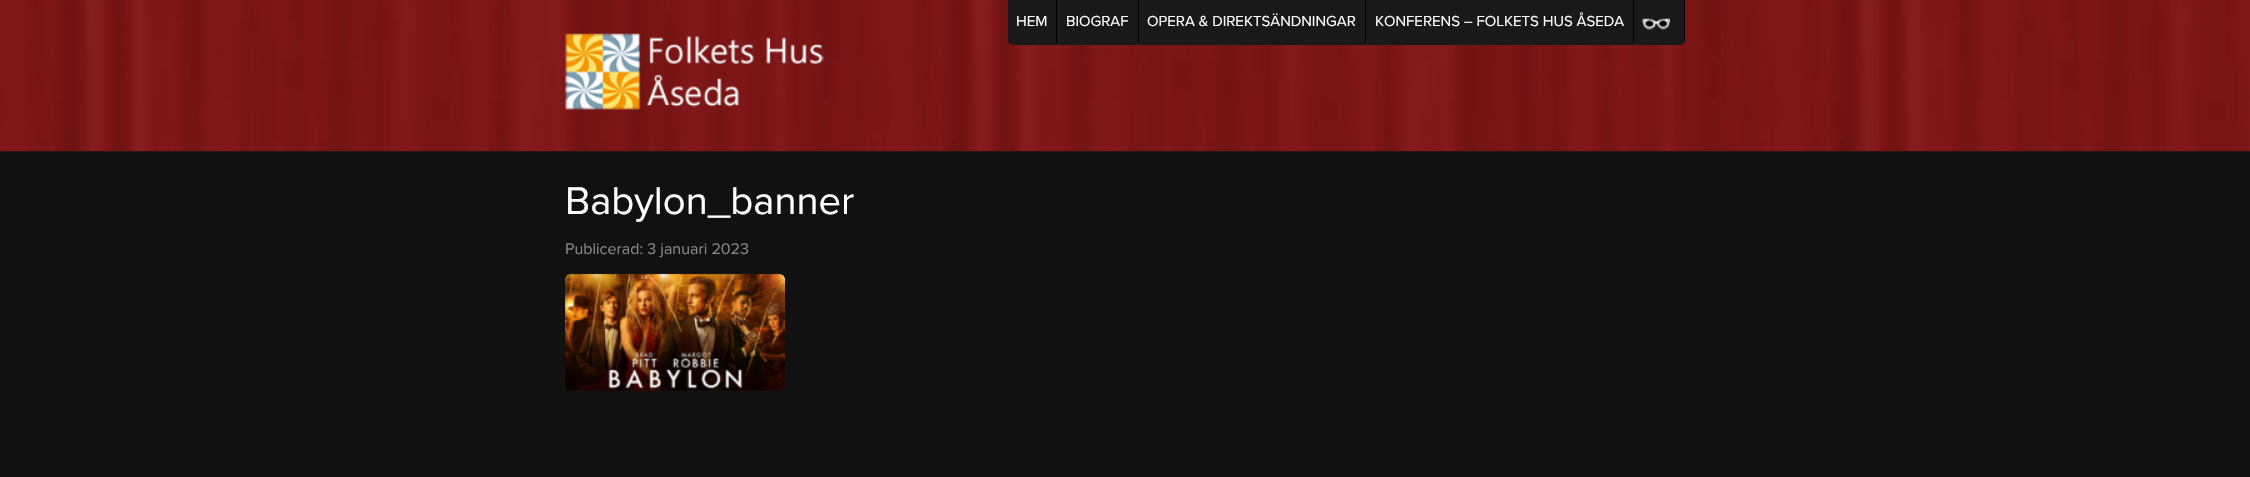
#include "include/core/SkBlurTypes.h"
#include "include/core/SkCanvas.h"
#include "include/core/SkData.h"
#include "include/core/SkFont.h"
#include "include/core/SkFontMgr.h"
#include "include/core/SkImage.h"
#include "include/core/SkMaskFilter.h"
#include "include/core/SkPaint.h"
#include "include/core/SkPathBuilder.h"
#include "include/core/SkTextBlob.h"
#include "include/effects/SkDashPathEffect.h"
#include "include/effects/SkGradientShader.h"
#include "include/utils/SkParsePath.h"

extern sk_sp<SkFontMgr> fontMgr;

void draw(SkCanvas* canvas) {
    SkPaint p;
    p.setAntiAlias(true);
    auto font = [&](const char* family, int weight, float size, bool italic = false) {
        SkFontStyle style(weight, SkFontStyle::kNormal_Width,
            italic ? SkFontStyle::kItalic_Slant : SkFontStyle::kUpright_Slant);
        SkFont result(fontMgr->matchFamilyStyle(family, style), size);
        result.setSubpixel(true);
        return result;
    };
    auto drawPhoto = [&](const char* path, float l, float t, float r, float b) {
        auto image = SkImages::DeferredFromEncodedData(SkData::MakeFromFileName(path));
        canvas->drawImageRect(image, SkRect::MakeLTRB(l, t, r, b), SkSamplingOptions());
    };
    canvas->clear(0xFF111111);
    drawPhoto("media/1.png", 0, 0, 2250, 152);
    p.setColor(0xFF191919);
    canvas->drawPath(SkPathBuilder().moveTo(1008, 0).lineTo(1685, 0).lineTo(1685, 39).cubicTo(1685, 42.5f, 1682.5f, 45, 1679, 45).lineTo(1014, 45).cubicTo(1010.5f, 45, 1008, 42.5f, 1008, 39).close().detach(), p);
    canvas->save();
    canvas->clipPath(SkPathBuilder().moveTo(1008, 0).lineTo(1685, 0).lineTo(1685, 39).cubicTo(1685, 42.5f, 1682.5f, 45, 1679, 45).lineTo(1014, 45).cubicTo(1010.5f, 45, 1008, 42.5f, 1008, 39).close().detach(), true);
    canvas->drawRect(SkRect::MakeLTRB(1008, 0, 1058, 43), p);
    canvas->restore();
    p.setColor(0xFF000000);
    canvas->drawRect(SkRect::MakeLTRB(1056, 0, 1057, 43), p);
    auto font1 = font("Proxima Nova", 400, 15);
    p.setColor(0xFFFFFFFF);
    canvas->drawString("HEM", 1016, 26, font1, p);
    p.setColor(0xFF000000);
    canvas->drawRect(SkRect::MakeLTRB(1138, 0, 1139, 43), p);
    p.setColor(0xFFFFFFFF);
    canvas->drawString("BIOGRAF", 1066, 26, font1, p);
    p.setColor(0xFF000000);
    canvas->drawRect(SkRect::MakeLTRB(1365, 0, 1366, 43), p);
    p.setColor(0xFFFFFFFF);
    canvas->drawString("OPERA & DIREKTSÄNDNINGAR", 1147, 26, font1, p);
    p.setColor(0xFF000000);
    canvas->drawRect(SkRect::MakeLTRB(1633, 0, 1634, 43), p);
    p.setColor(0xFFFFFFFF);
    canvas->drawString("KONFERENS – FOLKETS HUS ÅSEDA", 1375, 26, font1, p);
    p.setColor(0xFF191919);
    canvas->drawPath(SkPathBuilder().moveTo(1643, 0).lineTo(1685, 0).lineTo(1685, 39).cubicTo(1685, 42.5f, 1682.5f, 45, 1679, 45).lineTo(1643, 45).close().detach(), p);
    drawPhoto("media/2.png", 1642, 18, 1670, 30);
    canvas->save();
    canvas->clipPath(SkPathBuilder().moveTo(1008, 0).lineTo(1685, 0).lineTo(1685, 39).cubicTo(1685, 42.5f, 1682.5f, 45, 1679, 45).lineTo(1014, 45).cubicTo(1010.5f, 45, 1008, 42.5f, 1008, 39).close().detach(), true);
    p.setColor(0xFF000000);
    canvas->drawRect(SkRect::MakeLTRB(1684, 0, 1685, 45), p);
    canvas->restore();
    drawPhoto("media/3.png", 565, 33, 824, 110);
    auto font2 = font("Proxima Nova", 400, 40);
    p.setColor(0xFFFFFFFF);
    canvas->drawString("Babylon_banner", 565, 214, font2, p);
    auto font3 = font("Proxima Nova", 400, 16);
    p.setColor(0xFF888888);
    canvas->drawString("Publicerad: 3 januari 2023", 565, 254, font3, p);
    drawPhoto("media/4.png", 565, 273, 785, 391);
}
